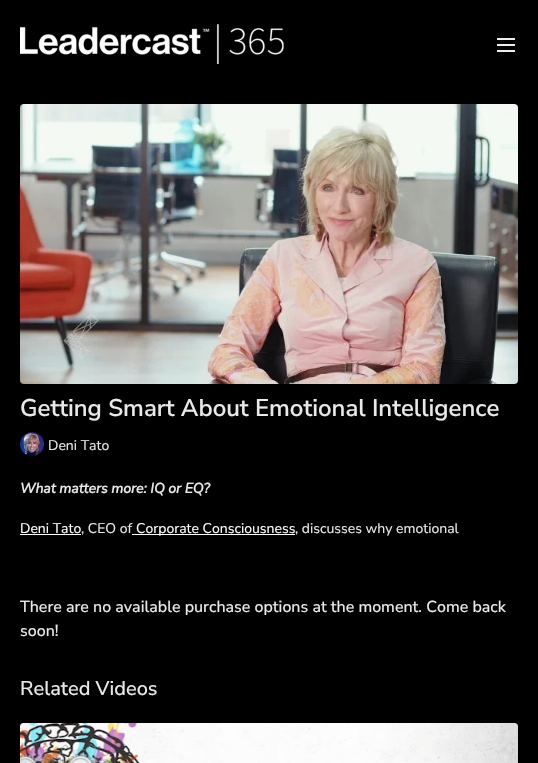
#include "include/core/SkBlurTypes.h"
#include "include/core/SkCanvas.h"
#include "include/core/SkData.h"
#include "include/core/SkFont.h"
#include "include/core/SkFontMgr.h"
#include "include/core/SkImage.h"
#include "include/core/SkMaskFilter.h"
#include "include/core/SkPaint.h"
#include "include/core/SkPathBuilder.h"
#include "include/core/SkTextBlob.h"
#include "include/effects/SkDashPathEffect.h"
#include "include/effects/SkGradientShader.h"
#include "include/utils/SkParsePath.h"

extern sk_sp<SkFontMgr> fontMgr;

void draw(SkCanvas* canvas) {
    SkPaint p;
    p.setAntiAlias(true);
    auto font = [&](const char* family, int weight, float size, bool italic = false) {
        SkFontStyle style(weight, SkFontStyle::kNormal_Width,
            italic ? SkFontStyle::kItalic_Slant : SkFontStyle::kUpright_Slant);
        SkFont result(fontMgr->matchFamilyStyle(family, style), size);
        result.setSubpixel(true);
        return result;
    };
    auto drawPhoto = [&](const char* path, float l, float t, float r, float b) {
        auto image = SkImages::DeferredFromEncodedData(SkData::MakeFromFileName(path));
        canvas->drawImageRect(image, SkRect::MakeLTRB(l, t, r, b), SkSamplingOptions());
    };
    canvas->clear(0xFF000000);
    drawPhoto("media/1.png", 20, 24, 284, 64);
    drawPhoto("media/2.png", 497, 38, 515, 52);
    drawPhoto("media/3.png", 20, 104, 518, 384);
    auto font1 = font("Nunito Sans", 600, 24);
    p.setColor(0xFFE9E9E9);
    canvas->drawString("Getting Smart About Emotional Intelligence", 20, 416, font1, p);
    drawPhoto("media/4.png", 20, 432, 44, 456);
    auto font2 = font("Nunito Sans", 400, 14);
    canvas->drawString("Deni Tato", 48, 450, font2, p);
    auto font3 = font("Nunito Sans", 700, 14, true);
    canvas->drawString("What matters more: IQ or EQ?", 20, 493, font3, p);
    p.setColor(0xFFFFFFFF);
    canvas->drawString("Deni Tato", 20, 533, font2, p);
    canvas->drawRect(SkRect::MakeLTRB(20, 534, 81, 535), p);
    p.setColor(0xFFE9E9E9);
    canvas->drawString(", CEO of", 81, 533, font2, p);
    p.setColor(0xFFFFFFFF);
    canvas->drawRect(SkRect::MakeLTRB(132, 534, 295, 535), p);
    canvas->drawString("Corporate Consciousness", 136, 533, font2, p);
    p.setColor(0xFFE9E9E9);
    canvas->drawString(", discusses why emotional", 295, 533, font2, p);
    auto font4 = font("Nunito Sans", 500, 16);
    canvas->drawString("There are no available purchase options at the moment. Come back", 20, 612, font4, p);
    canvas->drawString("soon!", 20, 636, font4, p);
    auto font5 = font("Nunito Sans", 500, 20);
    canvas->drawString("Related Videos", 20, 695, font5, p);
    drawPhoto("media/5.png", 20, 723, 518, 763);
}
